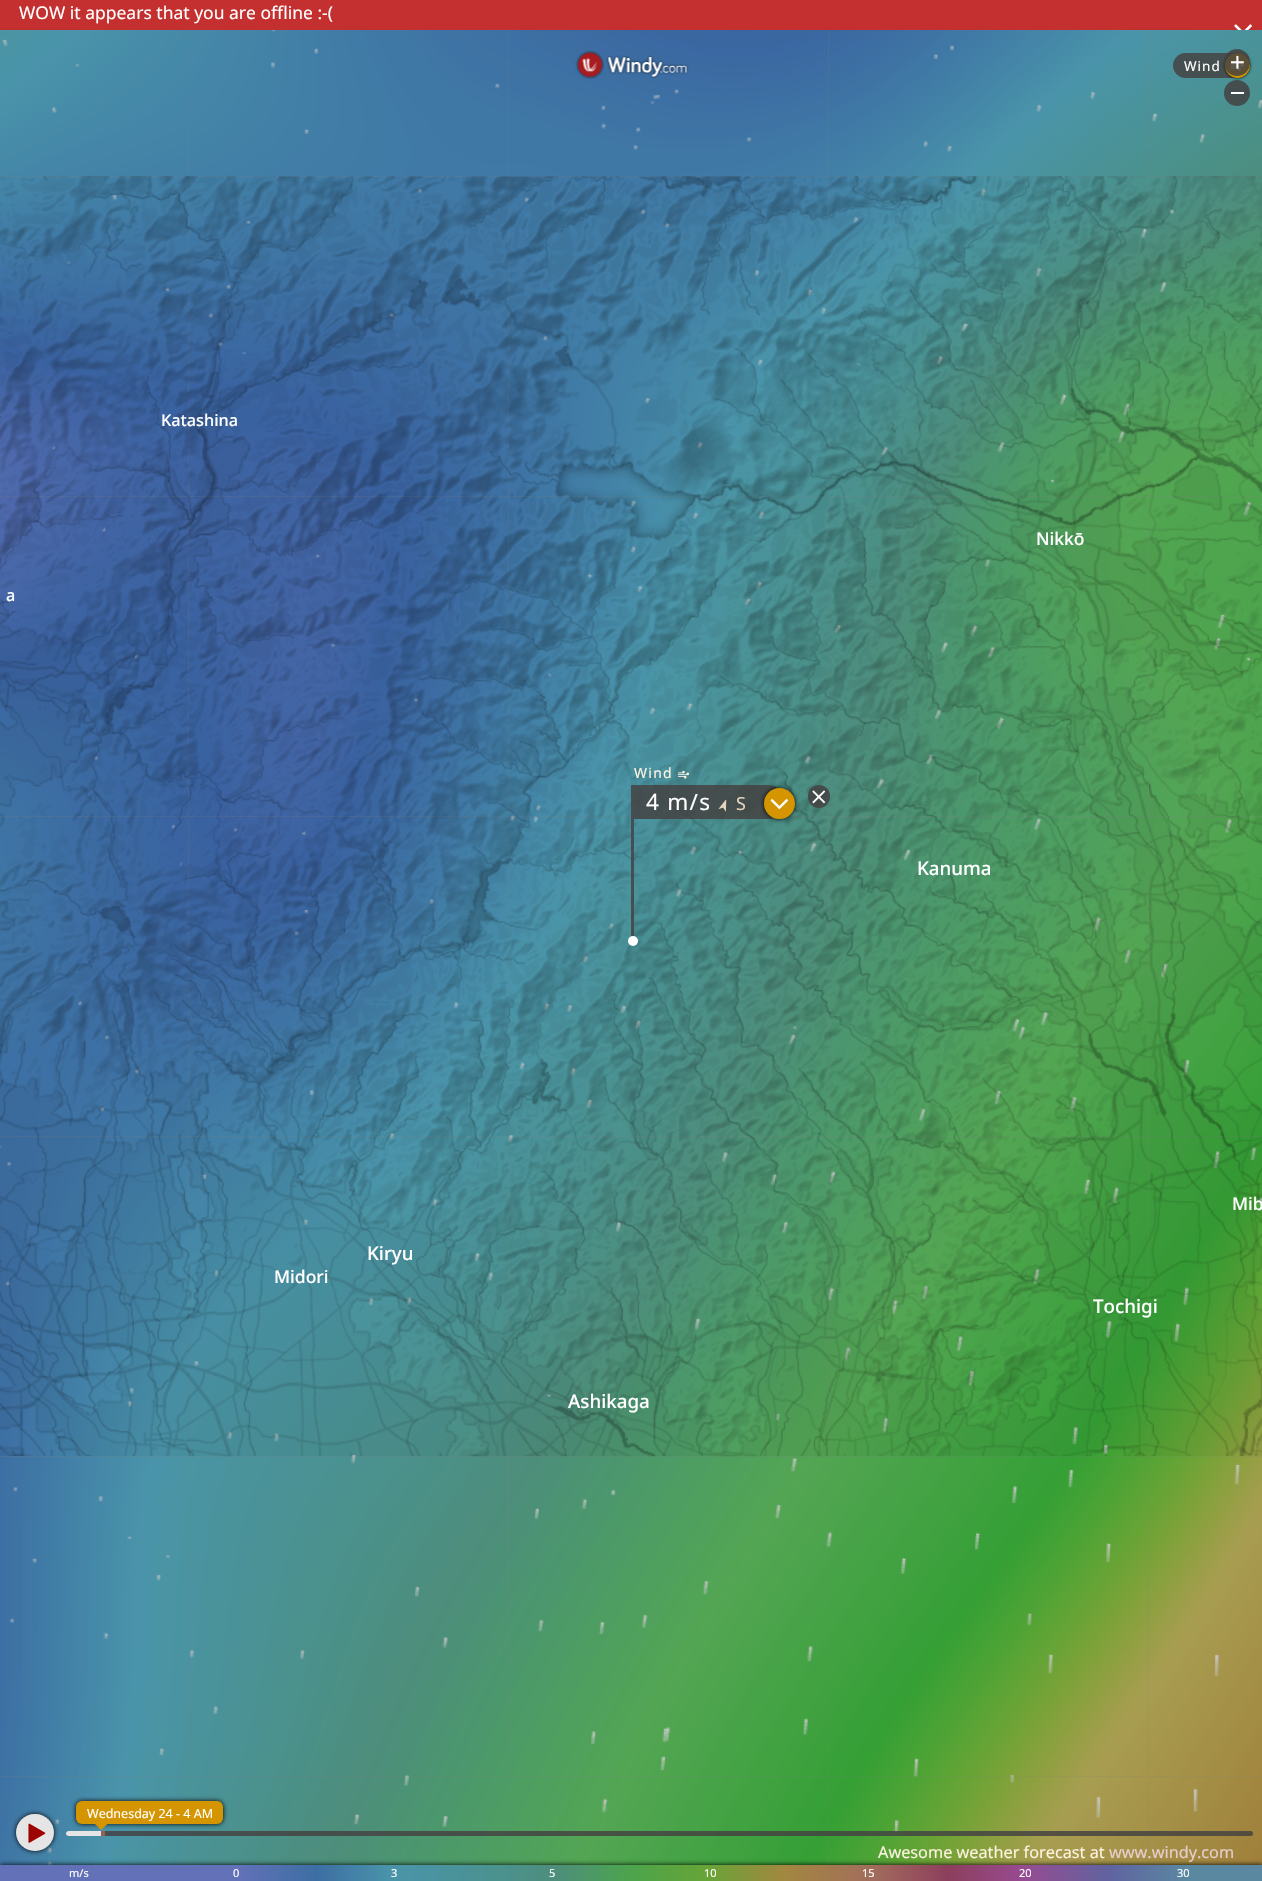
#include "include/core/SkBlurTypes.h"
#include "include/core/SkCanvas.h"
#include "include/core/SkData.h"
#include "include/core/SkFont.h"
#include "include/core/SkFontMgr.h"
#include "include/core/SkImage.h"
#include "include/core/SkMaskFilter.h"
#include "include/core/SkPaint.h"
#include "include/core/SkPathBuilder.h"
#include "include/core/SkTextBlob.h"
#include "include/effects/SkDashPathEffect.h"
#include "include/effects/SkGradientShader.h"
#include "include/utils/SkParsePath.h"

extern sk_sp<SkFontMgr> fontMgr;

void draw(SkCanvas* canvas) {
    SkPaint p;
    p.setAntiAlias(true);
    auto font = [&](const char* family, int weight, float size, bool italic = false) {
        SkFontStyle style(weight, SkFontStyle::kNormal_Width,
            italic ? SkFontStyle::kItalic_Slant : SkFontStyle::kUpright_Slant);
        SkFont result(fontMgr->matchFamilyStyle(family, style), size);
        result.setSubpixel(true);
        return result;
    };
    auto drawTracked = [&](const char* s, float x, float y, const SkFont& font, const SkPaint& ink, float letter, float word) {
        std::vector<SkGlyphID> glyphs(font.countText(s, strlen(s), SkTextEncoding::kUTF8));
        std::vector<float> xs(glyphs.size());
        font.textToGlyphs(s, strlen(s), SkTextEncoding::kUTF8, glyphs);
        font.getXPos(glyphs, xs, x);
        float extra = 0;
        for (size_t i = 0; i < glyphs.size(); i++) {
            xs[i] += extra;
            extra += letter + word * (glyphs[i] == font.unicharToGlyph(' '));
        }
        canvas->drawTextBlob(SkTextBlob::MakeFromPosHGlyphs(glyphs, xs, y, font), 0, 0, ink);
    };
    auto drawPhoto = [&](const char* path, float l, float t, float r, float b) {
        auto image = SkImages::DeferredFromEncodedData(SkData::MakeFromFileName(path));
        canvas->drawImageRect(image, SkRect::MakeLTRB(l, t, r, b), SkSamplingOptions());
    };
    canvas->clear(0xFF808080);
    p.setColor(0xFFC42F2F);
    canvas->drawRect(SkRect::MakeLTRB(0, 0, 1262, 30), p);
    auto font1 = font("Noto Sans", 400, 17.5f);
    p.setColor(0xFFFFFFFF);
    canvas->drawString("WOW it appears that you are offline :-(", 19, 19, font1, p);
    drawPhoto("media/1.png", 1234, 24, 1253, 30);
    drawPhoto("media/22.png", 188, 816, 509, 1137);
    drawPhoto("media/23.png", 508, 816, 829, 1137);
    drawPhoto("media/17.png", 188, 496, 509, 817);
    drawPhoto("media/27.png", 188, 1136, 509, 1457);
    drawPhoto("media/21.png", 0, 816, 189, 1137);
    drawPhoto("media/16.png", 0, 496, 189, 817);
    drawPhoto("media/18.png", 508, 496, 829, 817);
    drawPhoto("media/12.png", 188, 176, 509, 497);
    drawPhoto("media/19.png", 828, 496, 1149, 816);
    drawPhoto("media/13.png", 508, 176, 829, 497);
    drawPhoto("media/14.png", 828, 176, 1149, 497);
    drawPhoto("media/8.png", 508, 30, 829, 177);
    drawPhoto("media/11.png", 0, 176, 189, 497);
    drawPhoto("media/7.png", 188, 30, 509, 177);
    drawPhoto("media/6.png", 0, 30, 189, 177);
    drawPhoto("media/15.png", 1148, 176, 1262, 496);
    drawPhoto("media/9.png", 828, 30, 1149, 177);
    drawPhoto("media/10.png", 1149, 30, 1262, 176);
    drawPhoto("media/20.png", 1149, 496, 1262, 816);
    drawPhoto("media/24.png", 829, 816, 1149, 1137);
    drawPhoto("media/29.png", 829, 1136, 1149, 1457);
    drawPhoto("media/25.png", 1148, 816, 1262, 1137);
    drawPhoto("media/26.png", 0, 1136, 189, 1457);
    drawPhoto("media/28.png", 509, 1136, 829, 1457);
    drawPhoto("media/33.png", 509, 1456, 829, 1777);
    drawPhoto("media/34.png", 828, 1456, 1149, 1777);
    drawPhoto("media/30.png", 1148, 1136, 1262, 1457);
    drawPhoto("media/32.png", 188, 1456, 509, 1777);
    drawPhoto("media/31.png", 0, 1456, 189, 1777);
    drawPhoto("media/35.png", 1148, 1456, 1262, 1777);
    drawPhoto("media/38.png", 508, 1776, 829, 1865);
    drawPhoto("media/37.png", 188, 1776, 509, 1865);
    drawPhoto("media/36.png", 0, 1776, 189, 1865);
    drawPhoto("media/39.png", 828, 1776, 1149, 1865);
    drawPhoto("media/40.png", 1148, 1776, 1262, 1865);
    drawPhoto("media/41.png", 0, 30, 1262, 1865);
    drawPhoto("media/2.png", 575, 50, 605, 79);
    drawPhoto("media/3.png", 606, 55, 689, 79);
    p.setColor(0xD6444141);
    canvas->drawRoundRect(SkRect::MakeLTRB(1173, 53, 1250, 78), 12.5f, 12.5f, p);
    auto font2 = font("Noto Sans", 400, 13.5f);
    p.setColor(0xFFFFFFFF);
    drawTracked("Wind", 1184, 71, font2, p, 1, 0);
    p.setColor(0xFF000000);
    p.setMaskFilter(SkMaskFilter::MakeBlur(kNormal_SkBlurStyle, 1.5f));
    canvas->drawRoundRect(SkRect::MakeLTRB(1225, 53, 1250, 78), 12.5f, 12.5f, p);
    p.setMaskFilter(nullptr);
    p.setColor(0xFFD49500);
    canvas->drawCircle(1237.5f, 65.5f, 12.5f, p);
    drawPhoto("media/4.png", 1230, 61, 1244, 71);
    p.setColor(0xD6444141);
    canvas->drawRoundRect(SkRect::MakeLTRB(1224, 49, 1250, 76), 13, 13, p);
    drawPhoto("media/5.png", 1231, 55, 1244, 69);
    canvas->drawCircle(1237, 93, 13, p);
    p.setColor(0xFFFFFFFF);
    canvas->drawRect(SkRect::MakeLTRB(1231, 92, 1244, 94), p);
    drawPhoto("media/53.png", 188, 816, 509, 1137);
    drawPhoto("media/54.png", 508, 816, 829, 1137);
    drawPhoto("media/48.png", 188, 496, 509, 817);
    drawPhoto("media/47.png", 0, 496, 189, 816);
    drawPhoto("media/49.png", 508, 496, 829, 817);
    drawPhoto("media/43.png", 188, 176, 509, 497);
    drawPhoto("media/42.png", 0, 176, 189, 496);
    drawPhoto("media/58.png", 188, 1136, 509, 1457);
    drawPhoto("media/59.png", 508, 1136, 829, 1457);
    drawPhoto("media/55.png", 828, 816, 1149, 1137);
    drawPhoto("media/50.png", 828, 496, 1149, 817);
    drawPhoto("media/44.png", 508, 176, 829, 497);
    drawPhoto("media/45.png", 828, 176, 1149, 497);
    drawPhoto("media/46.png", 1149, 176, 1262, 496);
    drawPhoto("media/51.png", 1149, 496, 1262, 816);
    drawPhoto("media/52.png", 0, 816, 189, 1136);
    drawPhoto("media/56.png", 1149, 816, 1262, 1136);
    drawPhoto("media/57.png", 0, 1136, 189, 1456);
    drawPhoto("media/60.png", 828, 1136, 1149, 1457);
    drawPhoto("media/61.png", 1149, 1136, 1262, 1456);
    auto font3 = font("Noto Sans", 500, 16.25f);
    canvas->drawString("Katashina", 161, 426, font3, p);
    auto font4 = font("Noto Sans", 500, 17.5f);
    canvas->drawString("Nikkō", 1036, 545, font4, p);
    canvas->drawString("a", 6, 601, font3, p);
    auto font5 = font("Noto Sans", 500, 18.75f);
    canvas->drawString("Kanuma", 917, 875, font5, p);
    canvas->drawString("Mib", 1232, 1210, font4, p);
    canvas->drawString("Kiryu", 367, 1260, font5, p);
    canvas->drawString("Midori", 274, 1283, font4, p);
    canvas->drawString("Tochigi", 1093, 1313, font5, p);
    canvas->drawString("Ashikaga", 568, 1408, font5, p);
    p.setColor(0xD6444141);
    canvas->drawPath(SkPathBuilder().moveTo(634, 785).lineTo(768, 785).cubicTo(777.5f, 785, 785, 792.5f, 785, 802).cubicTo(785, 811.5f, 777.5f, 819, 768, 819).lineTo(634, 819).close().detach(), p);
    auto font6 = font("Noto Sans", 400, 14);
    p.setColor(0xFFFFF3E1);
    drawTracked("Wind", 634, 778, font6, p, 1.25f, 0);
    drawPhoto("media/62.png", 678, 770, 690, 779);
    auto font7 = font("Noto Sans", 400, 22.5f);
    p.setColor(0xFFFFFFFF);
    drawTracked("4 m/s", 646, 810, font7, p, 1.25f, 0);
    drawPhoto("media/63.png", 718, 799, 727, 812);
    auto font8 = font("Noto Sans", 400, 18);
    p.setColor(0xFFE4D5BD);
    drawTracked("S", 736, 810, font8, p, 1.25f, 0);
    p.setColor(0xFF000000);
    p.setMaskFilter(SkMaskFilter::MakeBlur(kNormal_SkBlurStyle, 2.5f));
    canvas->drawRoundRect(SkRect::MakeLTRB(764, 788, 795, 819), 15.5f, 15.5f, p);
    p.setMaskFilter(nullptr);
    p.setColor(0xFFD49500);
    canvas->drawCircle(779.5f, 803.5f, 15.5f, p);
    drawPhoto("media/64.png", 770, 799, 789, 810);
    p.setColor(0xD6444141);
    canvas->drawRoundRect(SkRect::MakeLTRB(808, 785, 830, 808), 11, 11, p);
    drawPhoto("media/65.png", 812, 790, 826, 804);
    canvas->drawRect(SkRect::MakeLTRB(631, 785, 634, 941), p);
    p.setColor(0xFFFFFFFF);
    canvas->drawCircle(633, 941, 5, p);
    p.setColor(0xFF000000);
    p.setMaskFilter(SkMaskFilter::MakeBlur(kNormal_SkBlurStyle, 2.5f));
    canvas->drawRoundRect(SkRect::MakeLTRB(16, 1814, 54, 1851), 18.5f, 18.5f, p);
    p.setMaskFilter(nullptr);
    p.setColor(0xFFE5E5E5);
    canvas->drawRoundRect(SkRect::MakeLTRB(16, 1814, 54, 1851), 18.5f, 18.5f, p);
    drawPhoto("media/66.png", 28, 1823, 46, 1843);
    p.setColor(0xFF000000);
    p.setMaskFilter(SkMaskFilter::MakeBlur(kNormal_SkBlurStyle, 2.5f));
    canvas->drawRoundRect(SkRect::MakeLTRB(76, 1801, 223, 1824), 6, 6, p);
    p.setMaskFilter(nullptr);
    p.setColor(0xFFD49500);
    canvas->drawRoundRect(SkRect::MakeLTRB(76, 1801, 223, 1824), 6, 6, p);
    auto font9 = font("Noto Sans", 400, 12.5f);
    p.setColor(0xFFFFFFFF);
    canvas->drawString("Wednesday 24 - 4 AM", 87, 1818, font9, p);
    p.setColor(0xFFD49500);
    canvas->drawPath(SkPathBuilder().moveTo(95, 1824).lineTo(107.5f, 1824).lineTo(101, 1830).close().detach(), p);
    p.setColor(0xD6444141);
    canvas->drawRoundRect(SkRect::MakeLTRB(66, 1831, 1253, 1836), 2.5f, 2.5f, p);
    p.setColor(0xFFE5E5E5);
    canvas->drawPath(SkPathBuilder().moveTo(68.5f, 1831).lineTo(101, 1831).lineTo(101, 1836).lineTo(68.5f, 1836).cubicTo(67, 1836, 66, 1835, 66, 1833.5f).cubicTo(66, 1832, 67, 1831, 68.5f, 1831).close().detach(), p);
    p.setColor(0xFF946051);
    canvas->drawRect(SkRect::MakeLTRB(101, 1831, 105, 1836), p);
    p.setColor(0xFF000000);
    p.setMaskFilter(SkMaskFilter::MakeBlur(kNormal_SkBlurStyle, 2.5f));
    canvas->drawRect(SkRect::MakeLTRB(0, 1865, 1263, 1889), p);
    p.setMaskFilter(nullptr);
    auto font10 = font("Noto Sans", 400, 16.25f);
    p.setColor(0xFFFFF3E1);
    canvas->drawString("Awesome weather forecast at", 878, 1858, font10, p);
    p.setColor(0xFFE6CECE);
    canvas->drawString("www.windy.com", 1109, 1858, font10, p);
    {
        const SkColor colors[] = {0xFF6271B8, 0xFF6271B8, 0xFF3D6EA3, 0xFF4A94AA, 0xFF4A9294, 0xFF4D8E7C, 0xFF4CA44C, 0xFF67A436, 0xFFA28740, 0xFFA26D5C, 0xFF8D3F5C, 0xFF974B91, 0xFF5F64A0, 0xFF5B88A1, 0xFF5B88A1};
        const float stops[] = {0, 0.19f, 0.25f, 0.31f, 0.38f, 0.44f, 0.5f, 0.56f, 0.62f, 0.69f, 0.75f, 0.81f, 0.88f, 0.94f, 1};
        const SkPoint ends[] = {{0, 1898}, {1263, 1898}};
        p.setShader(SkGradientShader::MakeLinear(ends, colors, stops, 15, SkTileMode::kClamp));
        p.setAlpha(255);
    }
    canvas->drawRect(SkRect::MakeLTRB(0, 1865, 1262, 1881), p);
    auto font11 = font("Noto Sans", 400, 11);
    p.setShader(nullptr);
    p.setColor(0xFFFFFFFF);
    {
        const struct { const char* s; float x, y; } items[] = {
            {"m/s", 69, 1877},
            {"0", 233, 1877},
            {"3", 391, 1877},
            {"5", 549, 1877},
            {"10", 704, 1877},
            {"15", 862, 1877},
            {"20", 1019, 1877},
            {"30", 1177, 1877},
        };
        for (auto [s, x, y] : items) {
            canvas->drawString(s, x, y, font11, p);
        }
    }
}
